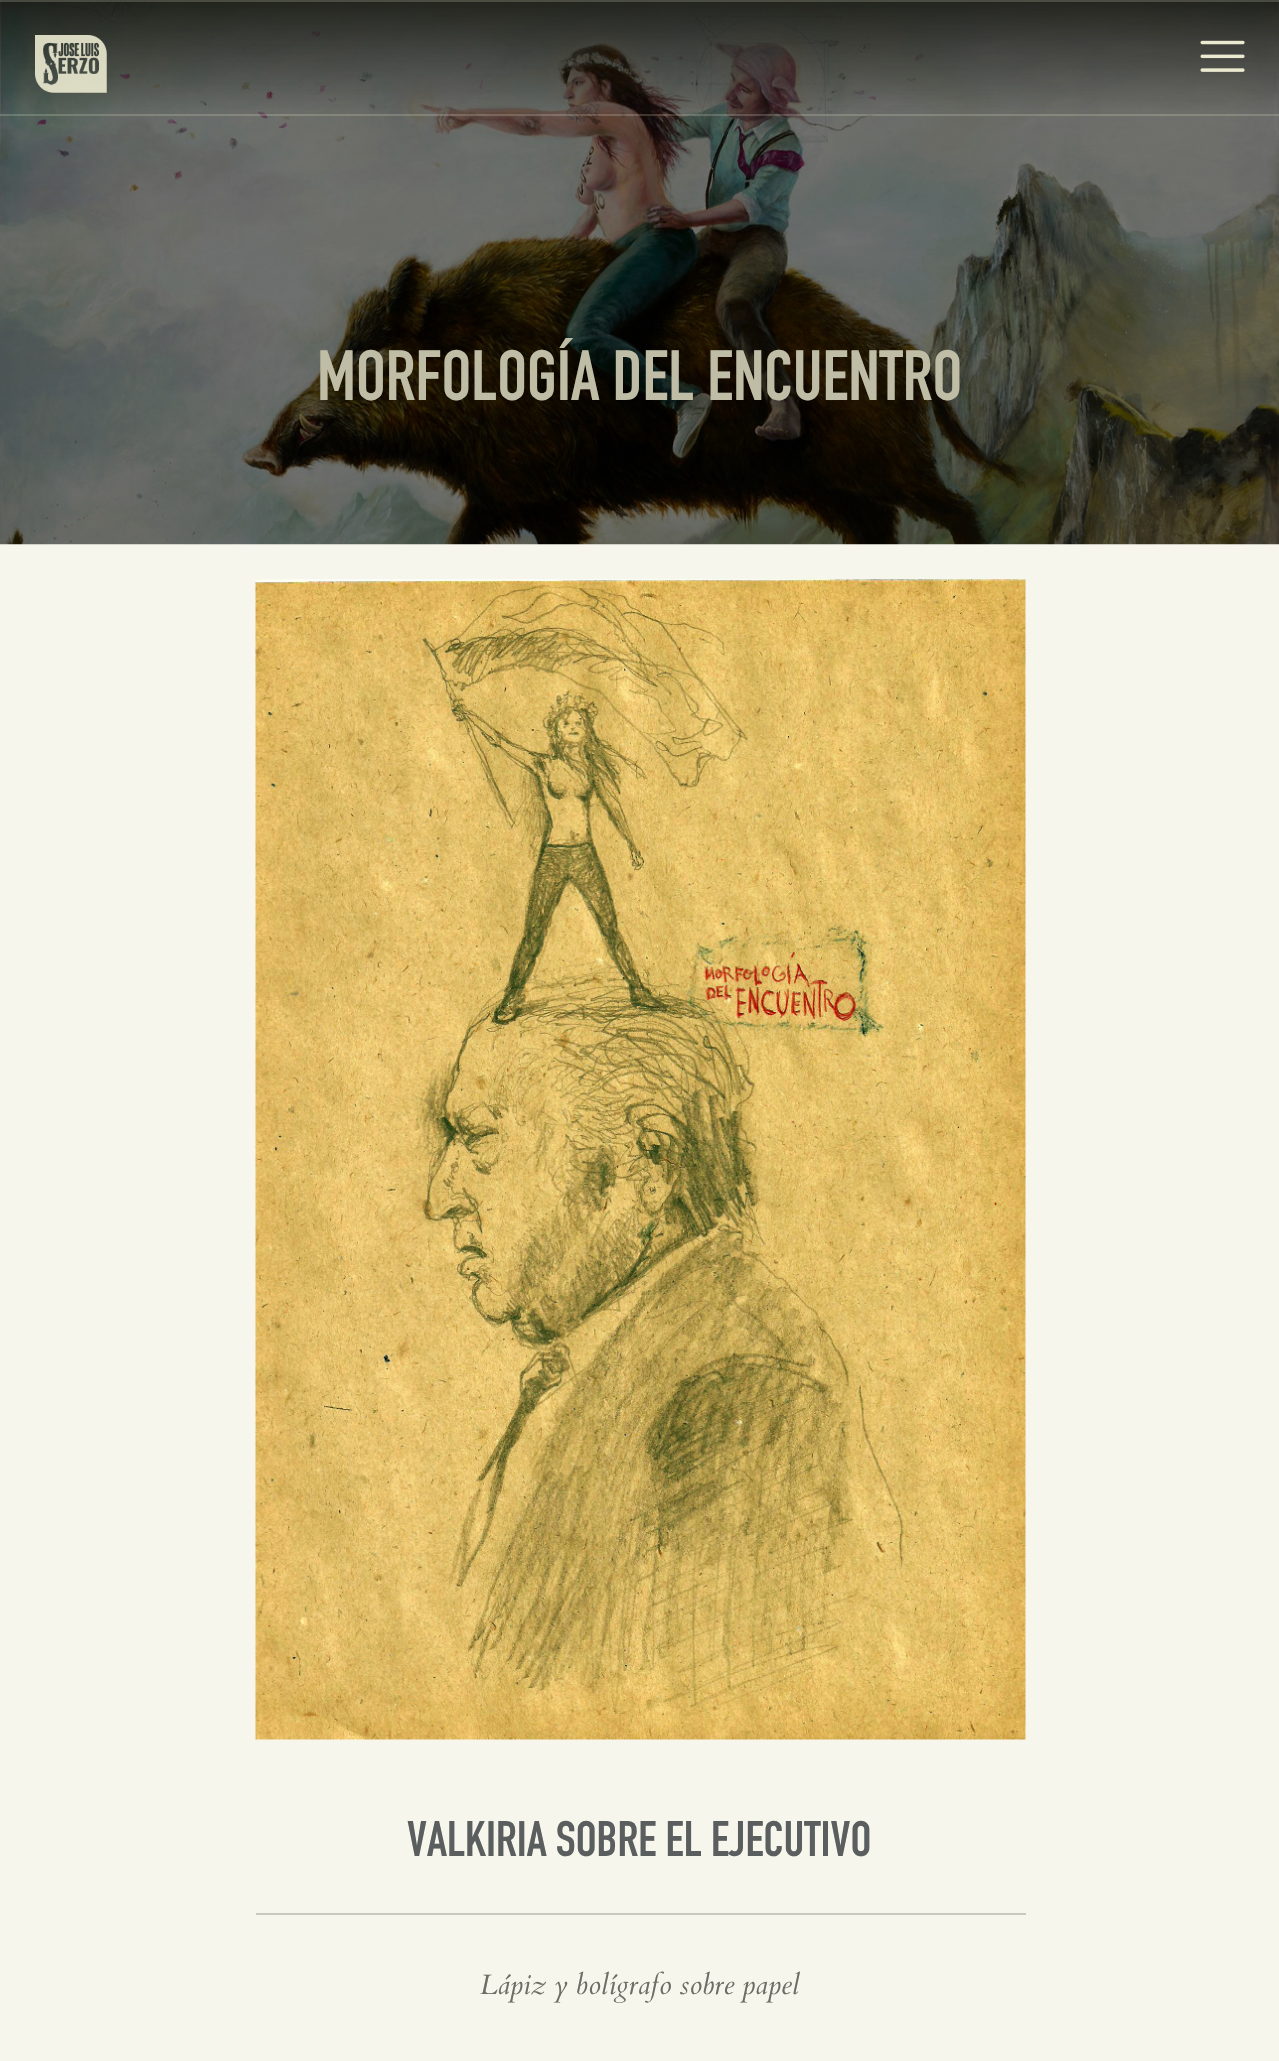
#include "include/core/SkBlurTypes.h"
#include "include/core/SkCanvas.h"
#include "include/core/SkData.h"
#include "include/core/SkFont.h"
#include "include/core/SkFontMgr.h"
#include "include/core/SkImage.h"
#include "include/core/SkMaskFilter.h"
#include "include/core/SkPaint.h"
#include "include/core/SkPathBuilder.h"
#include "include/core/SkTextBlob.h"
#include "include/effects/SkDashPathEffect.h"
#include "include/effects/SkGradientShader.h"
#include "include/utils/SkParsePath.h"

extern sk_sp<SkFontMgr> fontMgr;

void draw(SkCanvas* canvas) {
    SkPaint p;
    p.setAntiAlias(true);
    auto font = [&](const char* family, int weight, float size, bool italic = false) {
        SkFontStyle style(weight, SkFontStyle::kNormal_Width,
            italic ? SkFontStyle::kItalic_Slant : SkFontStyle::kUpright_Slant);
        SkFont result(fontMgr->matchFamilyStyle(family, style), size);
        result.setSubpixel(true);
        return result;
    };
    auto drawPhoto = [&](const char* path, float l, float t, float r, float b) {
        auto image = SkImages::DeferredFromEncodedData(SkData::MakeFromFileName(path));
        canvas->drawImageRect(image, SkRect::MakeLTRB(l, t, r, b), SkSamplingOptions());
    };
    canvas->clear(0xFFF7F6EC);
    drawPhoto("media/3.png", 0, 0, 1279, 545);
    p.setColor(0x33EBE9CF);
    canvas->drawRect(SkRect::MakeLTRB(0, 0, 1279, 2), p);
    canvas->drawRect(SkRect::MakeLTRB(0, 114, 1279, 116), p);
    drawPhoto("media/1.png", 35, 35, 107, 93);
    drawPhoto("media/2.png", 1200, 40, 1245, 72);
    auto font1 = font("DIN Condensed", 700, 70);
    p.setColor(0xFFBFBDA5);
    canvas->drawString("MORFOLOGÍA DEL ENCUENTRO", 317, 400, font1, p);
    drawPhoto("media/4.png", 255, 579, 1026, 1740);
    auto font2 = font("DIN Condensed", 700, 49);
    p.setColor(0xFF5A5E5E);
    canvas->drawString("VALKIRIA SOBRE EL EJECUTIVO", 407, 1856, font2, p);
    p.setColor(0xFFC9C8BF);
    canvas->drawRect(SkRect::MakeLTRB(256, 1913, 1026, 1915), p);
    auto font3 = font("Cardo", 400, 28, true);
    p.setColor(0xFF6D6D65);
    canvas->drawString("Lápiz y bolígrafo sobre papel", 480, 1994, font3, p);
}
